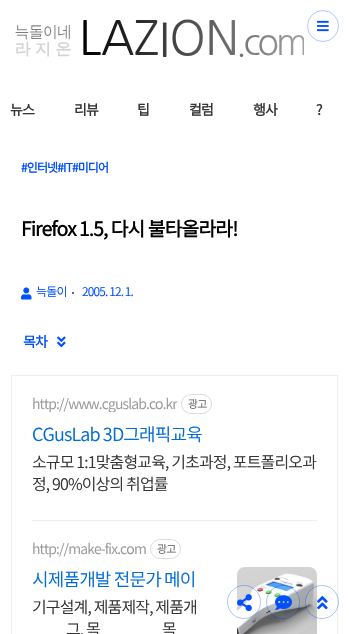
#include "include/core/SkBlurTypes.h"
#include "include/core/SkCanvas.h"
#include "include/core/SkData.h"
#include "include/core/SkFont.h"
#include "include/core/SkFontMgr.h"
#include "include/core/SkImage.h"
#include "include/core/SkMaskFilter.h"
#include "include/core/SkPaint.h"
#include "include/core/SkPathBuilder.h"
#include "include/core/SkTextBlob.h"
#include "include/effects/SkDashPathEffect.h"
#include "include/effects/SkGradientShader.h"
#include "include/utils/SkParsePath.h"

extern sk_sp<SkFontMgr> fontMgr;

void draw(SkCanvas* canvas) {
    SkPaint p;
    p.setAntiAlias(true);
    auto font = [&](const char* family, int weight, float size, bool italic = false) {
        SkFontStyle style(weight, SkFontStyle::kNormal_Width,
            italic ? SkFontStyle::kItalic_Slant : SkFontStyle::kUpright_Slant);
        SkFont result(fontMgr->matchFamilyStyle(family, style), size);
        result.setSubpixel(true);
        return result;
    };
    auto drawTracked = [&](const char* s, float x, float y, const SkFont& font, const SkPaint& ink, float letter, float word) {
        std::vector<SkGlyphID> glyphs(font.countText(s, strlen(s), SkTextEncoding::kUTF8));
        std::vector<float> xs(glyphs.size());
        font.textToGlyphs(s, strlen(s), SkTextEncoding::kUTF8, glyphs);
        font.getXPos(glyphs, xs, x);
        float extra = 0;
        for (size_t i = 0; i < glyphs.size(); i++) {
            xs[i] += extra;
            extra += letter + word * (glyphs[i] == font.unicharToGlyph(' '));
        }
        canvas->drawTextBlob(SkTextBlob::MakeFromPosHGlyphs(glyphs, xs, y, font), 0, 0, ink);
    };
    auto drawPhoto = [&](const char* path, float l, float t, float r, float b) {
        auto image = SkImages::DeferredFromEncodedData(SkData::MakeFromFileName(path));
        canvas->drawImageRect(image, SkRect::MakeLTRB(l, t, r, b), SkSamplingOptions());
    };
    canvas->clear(0xFFFFFFFF);
    p.setStyle(SkPaint::kStroke_Style);
    p.setStrokeWidth(1);
    p.setColor(0xFFAAC5FF);
    canvas->drawCircle(323, 26, 15.5f, p);
    p.setStyle(SkPaint::kFill_Style);
    p.setColor(0x1AFFFFFF);
    canvas->drawCircle(323, 26, 16, p);
    drawPhoto("media/1.png", 317, 20, 329, 32);
    drawPhoto("media/2.png", 15, 19, 304, 57);
    auto font1 = font("Noto Sans KR", 700, 14);
    p.setColor(0xFF353535);
    {
        const struct { const char* s; float x, y; } items[] = {
            {"뉴스", 10, 115},
            {"리뷰", 74, 115},
            {"팁", 137, 115},
            {"컬럼", 189, 115},
            {"행사", 253, 115},
            {"?", 316, 115},
        };
        for (auto [s, x, y] : items) {
            drawTracked(s, x, y, font1, p, -0.85f, 0);
        }
    }
    auto font2 = font("Noto Sans KR", 700, 12);
    p.setColor(0xFF0150FE);
    drawTracked("#인터넷#IT#미디어", 21, 172, font2, p, -0.85f, 0);
    auto font3 = font("Noto Sans KR", 700, 19.25f);
    p.setColor(0xFF000000);
    drawTracked("Firefox 1.5, 다시 불타올라라!", 21, 236, font3, p, -0.85f, 0);
    drawPhoto("media/3.png", 21, 287, 32, 300);
    auto font4 = font("Noto Sans KR", 300, 12);
    p.setColor(0xFF0150FE);
    drawTracked("늑돌이", 36, 296, font4, p, -0.85f, 0);
    p.setColor(0xFF666666);
    canvas->drawRect(SkRect::MakeLTRB(72, 292, 74, 294), p);
    p.setColor(0xFF0150FE);
    drawTracked("2005. 12. 1.", 82, 296, font4, p, -0.85f, 0);
    drawTracked("목차", 23, 347, font1, p, -0.85f, 0);
    drawPhoto("media/4.png", 57, 336, 66, 348);
    p.setStyle(SkPaint::kStroke_Style);
    p.setColor(0xFFEEEEEE);
    canvas->drawRect(SkRect::MakeLTRB(11.5f, 375.5f, 337.5f, 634.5f), p);
    canvas->save();
    canvas->clipRect(SkRect::MakeLTRB(32, 395, 177, 412));
    auto font5 = font("Noto Sans KR", 300, 14);
    p.setStyle(SkPaint::kFill_Style);
    p.setColor(0xFF999999);
    drawTracked("http://www.cguslab.co.kr", 32, 409, font5, p, -0.85f, 0);
    canvas->restore();
    p.setStyle(SkPaint::kStroke_Style);
    p.setColor(0xFFDDDDDD);
    canvas->drawRoundRect(SkRect::MakeLTRB(181.5f, 394.5f, 211.5f, 413.5f), 9.5f, 9.5f, p);
    auto font6 = font("Noto Sans KR", 300, 11);
    p.setStyle(SkPaint::kFill_Style);
    p.setColor(0xFF666666);
    drawTracked("광고", 188, 408, font6, p, -0.85f, 0);
    auto font7 = font("Noto Sans KR", 300, 18);
    p.setColor(0xFF016DD7);
    drawTracked("CGusLab 3D그래픽교육", 32, 441, font7, p, -0.85f, 0);
    auto font8 = font("Noto Sans KR", 300, 16);
    p.setColor(0xFF353535);
    drawTracked("소규모 1:1맞춤형교육, 기초과정, 포트폴리오과", 32, 468, font8, p, -0.85f, 0);
    drawTracked("정, 90%이상의 취업률", 32, 490, font8, p, -0.85f, 0);
    p.setColor(0xFFEEEEEE);
    canvas->drawRect(SkRect::MakeLTRB(32, 520, 317, 521), p);
    p.setColor(0xFF999999);
    drawTracked("http://make-fix.com", 32, 554, font5, p, -0.85f, 0);
    p.setStyle(SkPaint::kStroke_Style);
    p.setColor(0xFFDDDDDD);
    canvas->drawRoundRect(SkRect::MakeLTRB(150.5f, 539.5f, 180.5f, 558.5f), 9.5f, 9.5f, p);
    p.setStyle(SkPaint::kFill_Style);
    p.setColor(0xFF666666);
    drawTracked("광고", 157, 553, font6, p, -0.85f, 0);
    p.setColor(0xFF016DD7);
    drawTracked("시제품개발 전문가 메이", 32, 586, font7, p, -0.85f, 0);
    p.setColor(0xFF353535);
    {
        const struct { const char* s; float x, y; } items[] = {
            {"기구설계, 제품제작, 제품개", 32, 613},
            {"그, 목", 66, 635},
            {"목", 162, 635},
        };
        for (auto [s, x, y] : items) {
            drawTracked(s, x, y, font8, p, -0.85f, 0);
        }
    }
    drawPhoto("media/5.png", 237, 567, 317, 634);
    p.setStyle(SkPaint::kStroke_Style);
    p.setColor(0x540150FE);
    canvas->drawCircle(244, 602, 16.5f, p);
    p.setStyle(SkPaint::kFill_Style);
    p.setColor(0x1AFFFFFF);
    canvas->drawCircle(244, 602, 16, p);
    drawPhoto("media/6.png", 237, 594, 252, 612);
    p.setStyle(SkPaint::kStroke_Style);
    p.setColor(0x540150FE);
    canvas->drawCircle(283, 602, 16.5f, p);
    p.setStyle(SkPaint::kFill_Style);
    p.setColor(0x1ACCF4F9);
    canvas->drawCircle(283, 602, 16, p);
    drawPhoto("media/7.png", 275, 595, 292, 611);
    p.setStyle(SkPaint::kStroke_Style);
    p.setColor(0x540150FE);
    canvas->drawCircle(322, 602, 16.5f, p);
    p.setStyle(SkPaint::kFill_Style);
    p.setColor(0x1AFFFFFF);
    canvas->drawCircle(322, 602, 16, p);
    drawPhoto("media/8.png", 317, 596, 328, 610);
}
